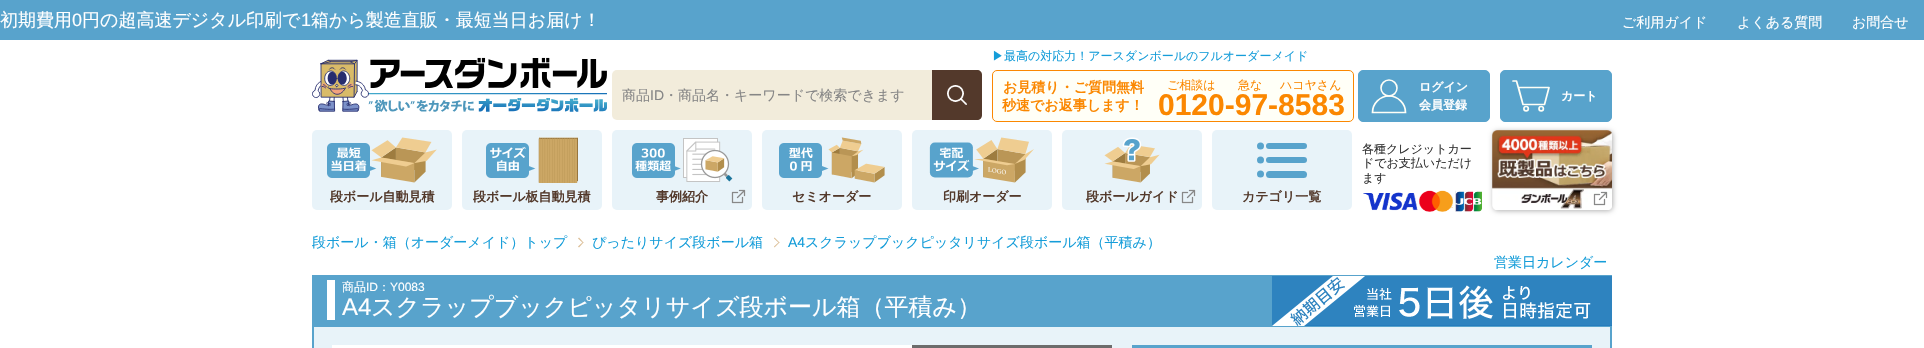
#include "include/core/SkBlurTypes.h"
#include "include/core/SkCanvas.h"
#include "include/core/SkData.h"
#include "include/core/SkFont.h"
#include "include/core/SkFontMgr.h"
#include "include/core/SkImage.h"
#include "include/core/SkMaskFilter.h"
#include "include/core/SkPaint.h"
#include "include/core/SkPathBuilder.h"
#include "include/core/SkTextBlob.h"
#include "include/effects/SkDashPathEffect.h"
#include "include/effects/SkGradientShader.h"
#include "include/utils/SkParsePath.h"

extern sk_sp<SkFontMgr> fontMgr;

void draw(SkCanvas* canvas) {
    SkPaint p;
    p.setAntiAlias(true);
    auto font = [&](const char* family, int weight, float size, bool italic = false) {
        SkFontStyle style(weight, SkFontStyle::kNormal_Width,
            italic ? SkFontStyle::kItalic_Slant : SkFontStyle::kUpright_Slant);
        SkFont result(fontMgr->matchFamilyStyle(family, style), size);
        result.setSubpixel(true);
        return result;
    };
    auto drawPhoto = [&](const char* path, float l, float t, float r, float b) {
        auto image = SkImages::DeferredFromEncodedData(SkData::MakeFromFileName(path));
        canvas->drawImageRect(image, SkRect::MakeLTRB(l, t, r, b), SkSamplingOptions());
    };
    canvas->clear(0xFFFFFFFF);
    p.setColor(0xFF58A3CC);
    canvas->drawRect(SkRect::MakeLTRB(0, 0, 1924, 40), p);
    auto font1 = font("WenQuanYi Zen Hei", 500, 18);
    p.setColor(0xFFFFFFFF);
    canvas->drawString("初期費用", 0, 26, font1, p);
    auto font2 = font("Liberation Sans", 400, 18);
    canvas->drawString("0", 72, 26, font2, p);
    canvas->drawString("円の超高速デジタル印刷で", 82, 26, font1, p);
    canvas->drawString("1", 301, 26, font2, p);
    canvas->drawString("箱から製造直販・最短当日お届け！", 311, 26, font1, p);
    auto font3 = font("WenQuanYi Zen Hei", 500, 14);
    {
        const struct { const char* s; float x, y; } items[] = {
            {"ご利用ガイド", 1622, 27},
            {"よくある質問", 1737, 27},
            {"お問合せ", 1852, 27},
        };
        for (auto [s, x, y] : items) {
            canvas->drawString(s, x, y, font3, p);
        }
    }
    drawPhoto("media/1.png", 312, 57, 607, 112);
    p.setColor(0xFFF2ECDB);
    canvas->drawRoundRect(SkRect::MakeLTRB(612, 70, 982, 120), 5, 5, p);
    p.setColor(0xFF868686);
    canvas->drawString("商品", 622, 100, font3, p);
    auto font4 = font("Liberation Sans", 400, 14);
    canvas->drawString("ID", 650, 100, font4, p);
    canvas->drawString("・商品名・キーワードで検索できます", 664, 100, font3, p);
    p.setColor(0xFF53392B);
    canvas->drawPath(SkPathBuilder().moveTo(932, 70).lineTo(977, 70).cubicTo(980, 70, 982, 72, 982, 75).lineTo(982, 115).cubicTo(982, 118, 980, 120, 977, 120).lineTo(932, 120).close().detach(), p);
    drawPhoto("media/2.png", 947, 85, 967, 105);
    auto font5 = font("WenQuanYi Zen Hei", 500, 12);
    p.setColor(0xFF159DD9);
    canvas->drawString("▶最高の対応力！アースダンボールのフルオーダーメイド", 992, 60, font5, p);
    p.setColor(0xFFFFFFF7);
    canvas->drawRoundRect(SkRect::MakeLTRB(992.5f, 70.5f, 1353.5f, 121.5f), 4.5f, 4.5f, p);
    p.setStyle(SkPaint::kStroke_Style);
    p.setStrokeWidth(1);
    p.setColor(0xFFFB8700);
    canvas->drawRoundRect(SkRect::MakeLTRB(992.5f, 70.5f, 1353.5f, 121.5f), 4.5f, 4.5f, p);
    auto font6 = font("WenQuanYi Zen Hei", 700, 14);
    p.setStyle(SkPaint::kFill_Style);
    canvas->drawString("お見積り・ご質問無料", 1003, 92, font6, p);
    canvas->drawString("秒速でお返事します！", 1002, 110, font6, p);
    {
        const struct { const char* s; float x, y; } items[] = {
            {"ご相談は", 1167, 89},
            {"急な", 1238, 89},
            {"ハコヤさん", 1280, 89},
        };
        for (auto [s, x, y] : items) {
            canvas->drawString(s, x, y, font5, p);
        }
    }
    auto font7 = font("Liberation Sans", 700, 30);
    canvas->drawString("0120-97-8583", 1158, 115, font7, p);
    p.setColor(0xFF58A3CC);
    canvas->drawRoundRect(SkRect::MakeLTRB(1358.5f, 70.5f, 1489.5f, 121.5f), 4.5f, 4.5f, p);
    p.setStyle(SkPaint::kStroke_Style);
    canvas->drawRoundRect(SkRect::MakeLTRB(1358.5f, 70.5f, 1489.5f, 121.5f), 4.5f, 4.5f, p);
    p.setStrokeWidth(1.6f);
    p.setColor(0xFFFFFFF7);
    canvas->drawCircle(1389, 88, 8, p);
    p.setStrokeWidth(1.7f);
    canvas->drawPath(SkPathBuilder().moveTo(1405.5f, 112.5f).cubicTo(1405.5f, 103.5f, 1398, 96, 1389, 96).cubicTo(1380, 96, 1372.5f, 103.5f, 1372.5f, 112.5f).close().detach(), p);
    auto font8 = font("WenQuanYi Zen Hei", 700, 12);
    p.setStyle(SkPaint::kFill_Style);
    p.setColor(0xFFFFFFFF);
    canvas->drawString("ログイン", 1419, 91, font8, p);
    canvas->drawString("会員登録", 1419, 109, font8, p);
    p.setColor(0xFF58A3CC);
    canvas->drawRoundRect(SkRect::MakeLTRB(1500.5f, 70.5f, 1611.5f, 121.5f), 4.5f, 4.5f, p);
    p.setStyle(SkPaint::kStroke_Style);
    p.setStrokeWidth(1);
    canvas->drawRoundRect(SkRect::MakeLTRB(1500.5f, 70.5f, 1611.5f, 121.5f), 4.5f, 4.5f, p);
    p.setStrokeWidth(1.7f);
    p.setStrokeCap(SkPaint::kRound_Cap);
    p.setStrokeJoin(SkPaint::kRound_Join);
    p.setColor(0xFFFFFFF7);
    canvas->drawPath(SkPathBuilder().moveTo(1544.5f, 104.5f).lineTo(1523, 104.5f).lineTo(1518.5f, 87.5f).lineTo(1549, 87.5f).close().moveTo(1523, 104.5f).lineTo(1516.5f, 81).lineTo(1513, 81).detach(), p);
    p.setStrokeCap(SkPaint::kButt_Cap);
    p.setStrokeJoin(SkPaint::kMiter_Join);
    canvas->drawCircle(1526.1f, 108.7f, 2.2f, p);
    canvas->drawCircle(1541.2f, 108.7f, 2.2f, p);
    p.setStyle(SkPaint::kFill_Style);
    p.setColor(0xFFFFFFFF);
    canvas->drawString("カート", 1561, 100, font8, p);
    p.setColor(0xFF333333);
    {
        const struct { const char* s; float x, y; } items[] = {
            {"各種クレジットカー", 1362, 153},
            {"ドでお支払いただけ", 1362, 167},
            {"ます", 1362, 182},
        };
        for (auto [s, x, y] : items) {
            canvas->drawString(s, x, y, font5, p);
        }
    }
    drawPhoto("media/3.png", 1363, 190, 1482, 212);
    p.setColor(0x4D000000);
    p.setMaskFilter(SkMaskFilter::MakeBlur(kNormal_SkBlurStyle, 2.5f));
    canvas->drawRoundRect(SkRect::MakeLTRB(1493, 131, 1613, 211), 5, 5, p);
    p.setMaskFilter(nullptr);
    drawPhoto("media/4.png", 1492, 130, 1612, 210);
    drawPhoto("media/5.png", 1593, 191, 1608, 206);
    p.setColor(0xFFE8F3F9);
    canvas->drawRoundRect(SkRect::MakeLTRB(312, 130, 452, 210), 5, 5, p);
    drawPhoto("media/6.png", 327, 137, 437, 183);
    auto font9 = font("WenQuanYi Zen Hei", 700, 13);
    p.setColor(0xFF53392B);
    canvas->drawString("段ボール自動見積", 330, 201, font9, p);
    p.setColor(0xFFE8F3F9);
    canvas->drawRoundRect(SkRect::MakeLTRB(462, 130, 602, 210), 5, 5, p);
    drawPhoto("media/7.png", 486, 137, 578, 183);
    p.setColor(0xFF53392B);
    canvas->drawString("段ボール板自動見積", 473, 201, font9, p);
    p.setColor(0xFFE8F3F9);
    canvas->drawRoundRect(SkRect::MakeLTRB(612, 130, 752, 210), 5, 5, p);
    drawPhoto("media/8.png", 632, 138, 733, 182);
    p.setColor(0xFF53392B);
    canvas->drawString("事例紹介", 656, 201, font9, p);
    drawPhoto("media/9.png", 731, 189, 746, 204);
    p.setColor(0xFFE8F3F9);
    canvas->drawRoundRect(SkRect::MakeLTRB(762, 130, 902, 210), 5, 5, p);
    drawPhoto("media/10.png", 779, 137, 885, 183);
    p.setColor(0xFF53392B);
    canvas->drawString("セミオーダー", 792, 201, font9, p);
    p.setColor(0xFFE8F3F9);
    canvas->drawRoundRect(SkRect::MakeLTRB(912, 130, 1052, 210), 5, 5, p);
    drawPhoto("media/11.png", 929, 137, 1034, 183);
    p.setColor(0xFF53392B);
    canvas->drawString("印刷オーダー", 943, 201, font9, p);
    p.setColor(0xFFE8F3F9);
    canvas->drawRoundRect(SkRect::MakeLTRB(1062, 130, 1202, 210), 5, 5, p);
    drawPhoto("media/12.png", 1104, 137, 1160, 183);
    p.setColor(0xFF53392B);
    canvas->drawString("段ボールガイド", 1086, 201, font9, p);
    drawPhoto("media/9.png", 1181, 189, 1196, 204);
    p.setColor(0xFFE8F3F9);
    canvas->drawRoundRect(SkRect::MakeLTRB(1212, 130, 1352, 210), 5, 5, p);
    p.setColor(0xFF58A3CC);
    canvas->drawRoundRect(SkRect::MakeLTRB(1266, 143, 1307, 149), 3, 3, p);
    canvas->drawRoundRect(SkRect::MakeLTRB(1266, 157, 1307, 163), 3, 3, p);
    canvas->drawCircle(1260.5f, 146, 3.5f, p);
    canvas->drawCircle(1260.5f, 160, 3.5f, p);
    canvas->drawCircle(1260.5f, 174, 3.5f, p);
    canvas->drawRoundRect(SkRect::MakeLTRB(1266, 171, 1307, 178), 3.5f, 3.5f, p);
    p.setColor(0xFF53392B);
    canvas->drawString("カテゴリ一覧", 1242, 201, font9, p);
    p.setColor(0xFF159DD9);
    canvas->drawString("段ボール・箱（オーダーメイド）トップ", 312, 247, font3, p);
    p.setColor(0xFFDBBD94);
    canvas->drawPath(SkPathBuilder().moveTo(579, 237.5f).lineTo(583.5f, 242.5f).lineTo(583, 243).lineTo(578, 238.5f).close().detach(), p);
    canvas->drawPath(SkPathBuilder().moveTo(583, 242).lineTo(583.5f, 242.5f).lineTo(579, 247.5f).lineTo(578, 246.5f).close().detach(), p);
    p.setColor(0xFF159DD9);
    canvas->drawString("ぴったりサイズ段ボール箱", 592, 247, font3, p);
    p.setColor(0xFFDBBD94);
    canvas->drawPath(SkPathBuilder().moveTo(774.5f, 237.5f).lineTo(779.5f, 242.5f).lineTo(779, 243).lineTo(774, 238.5f).close().detach(), p);
    canvas->drawPath(SkPathBuilder().moveTo(779, 242).lineTo(779.5f, 242.5f).lineTo(774.5f, 247.5f).lineTo(774, 246.5f).close().detach(), p);
    p.setColor(0xFF159DD9);
    canvas->drawString("A4", 788, 247, font4, p);
    canvas->drawString("スクラップブックピッタリサイズ段ボール箱（平積み）", 805, 247, font3, p);
    p.setColor(0xFFE8F3F9);
    canvas->drawRect(SkRect::MakeLTRB(313, 326, 1611, 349), p);
    p.setStyle(SkPaint::kStroke_Style);
    p.setStrokeWidth(2);
    p.setColor(0xFF58A3CC);
    canvas->drawRect(SkRect::MakeLTRB(313, 326, 1611, 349), p);
    p.setStyle(SkPaint::kFill_Style);
    p.setColor(0xFF159DD9);
    canvas->drawString("営業日カレンダー", 1494, 267, font3, p);
    p.setColor(0xFF58A3CC);
    canvas->drawRect(SkRect::MakeLTRB(312, 275, 1612, 325), p);
    drawPhoto("media/13.png", 1272, 276, 1612, 326);
    {
        const struct { float l, t, r, b; SkColor color; } items[] = {
            {1132, 345, 1592, 348, 0xFF58A3CC},
            {332, 345, 912, 348, 0xFFFFFFFF},
            {912, 345, 1112, 348, 0xFF6C6C6C},
        };
        for (auto [l, t, r, b, color] : items) {
            p.setColor(color);
            canvas->drawRect(SkRect::MakeLTRB(l, t, r, b), p);
        }
    }
    p.setColor(0xFFFFFFFF);
    canvas->drawString("商品", 342, 291, font5, p);
    auto font10 = font("Liberation Sans", 400, 12);
    canvas->drawString("ID", 366, 291, font10, p);
    canvas->drawString("：", 378, 291, font5, p);
    canvas->drawString("Y0083", 390, 291, font10, p);
    canvas->drawRect(SkRect::MakeLTRB(327, 280, 335, 320), p);
    auto font11 = font("Liberation Sans", 400, 24);
    canvas->drawString("A4", 342, 315, font11, p);
    auto font12 = font("WenQuanYi Zen Hei", 500, 24);
    canvas->drawString("スクラップブックピッタリサイズ段ボール箱（平積み）", 371, 315, font12, p);
}
